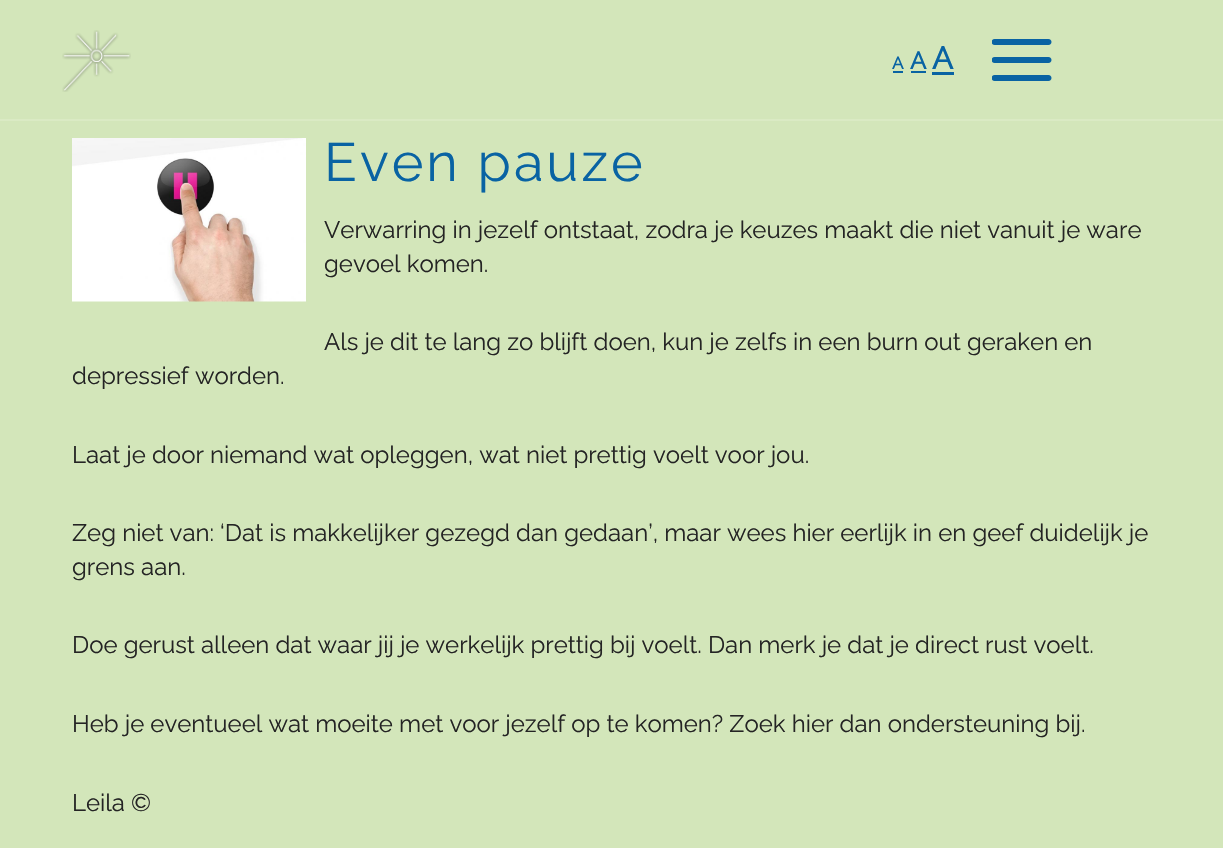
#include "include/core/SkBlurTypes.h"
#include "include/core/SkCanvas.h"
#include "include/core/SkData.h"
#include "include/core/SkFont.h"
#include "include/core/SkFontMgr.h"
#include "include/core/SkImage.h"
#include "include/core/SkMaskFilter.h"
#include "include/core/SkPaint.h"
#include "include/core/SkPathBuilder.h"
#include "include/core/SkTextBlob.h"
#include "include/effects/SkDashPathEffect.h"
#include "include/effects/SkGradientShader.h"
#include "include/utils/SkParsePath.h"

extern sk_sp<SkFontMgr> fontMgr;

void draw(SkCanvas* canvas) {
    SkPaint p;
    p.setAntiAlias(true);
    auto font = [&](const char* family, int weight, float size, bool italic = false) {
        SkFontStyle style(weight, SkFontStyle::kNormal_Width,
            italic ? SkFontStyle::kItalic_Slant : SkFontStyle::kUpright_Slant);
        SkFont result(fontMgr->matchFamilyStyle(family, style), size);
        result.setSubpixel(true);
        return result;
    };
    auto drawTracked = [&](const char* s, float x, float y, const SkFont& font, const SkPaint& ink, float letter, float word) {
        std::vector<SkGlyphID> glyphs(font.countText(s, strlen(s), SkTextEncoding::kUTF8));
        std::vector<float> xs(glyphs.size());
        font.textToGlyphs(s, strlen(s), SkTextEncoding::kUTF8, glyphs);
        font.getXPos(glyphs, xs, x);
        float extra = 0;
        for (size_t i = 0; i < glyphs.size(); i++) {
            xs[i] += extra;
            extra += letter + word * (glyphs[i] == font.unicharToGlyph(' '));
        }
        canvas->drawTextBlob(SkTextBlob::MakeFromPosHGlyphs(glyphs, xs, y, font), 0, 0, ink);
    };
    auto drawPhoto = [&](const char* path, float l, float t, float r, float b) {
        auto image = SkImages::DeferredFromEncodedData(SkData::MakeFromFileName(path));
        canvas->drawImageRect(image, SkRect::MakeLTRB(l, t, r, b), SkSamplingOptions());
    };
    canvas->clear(0xFFD3E6BA);
    p.setColor(0xFFDAEAC4);
    canvas->drawRect(SkRect::MakeLTRB(0, 119, 1223, 121), p);
    drawPhoto("media/1.png", 62, 30, 131, 92);
    auto font1 = font("Raleway", 700, 17);
    p.setColor(0xFF0963A3);
    canvas->drawString("A", 892, 69, font1, p);
    canvas->drawRect(SkRect::MakeLTRB(893, 71, 903, 73), p);
    auto font2 = font("Raleway", 700, 24);
    canvas->drawString("A", 910, 69, font2, p);
    canvas->drawRect(SkRect::MakeLTRB(911, 71, 926, 73), p);
    auto font3 = font("Raleway", 700, 31);
    canvas->drawString("A", 932, 69, font3, p);
    canvas->drawRect(SkRect::MakeLTRB(932, 72, 954, 75), p);
    drawPhoto("media/2.png", 992, 39, 1052, 81);
    drawPhoto("media/3.png", 72, 138, 306, 302);
    auto font4 = font("Raleway", 100, 54);
    drawTracked("Even pauze", 324, 181, font4, p, 3, 0);
    auto font5 = font("Raleway", 100, 24);
    p.setColor(0xFF242424);
    {
        const struct { const char* s; float x, y; } items[] = {
            {"Verwarring in jezelf ontstaat, zodra je keuzes maakt die niet vanuit je ware", 324, 238},
            {"gevoel komen.", 324, 272},
            {"Als je dit te lang zo blijft doen, kun je zelfs in een burn out geraken en", 324, 350},
            {"depressief worden.", 72, 384},
            {"Laat je door niemand wat opleggen, wat niet prettig voelt voor jou.", 72, 463},
            {"Zeg niet van: ‘Dat is makkelijker gezegd dan gedaan’, maar wees hier eerlijk in en geef duidelijk je", 72, 541},
            {"grens aan.", 72, 575},
            {"Doe gerust alleen dat waar jij je werkelijk prettig bij voelt. Dan merk je dat je direct rust voelt.", 72, 653},
            {"Heb je eventueel wat moeite met voor jezelf op te komen? Zoek hier dan ondersteuning bij.", 72, 732},
            {"Leila ©", 72, 811},
        };
        for (auto [s, x, y] : items) {
            canvas->drawString(s, x, y, font5, p);
        }
    }
}
